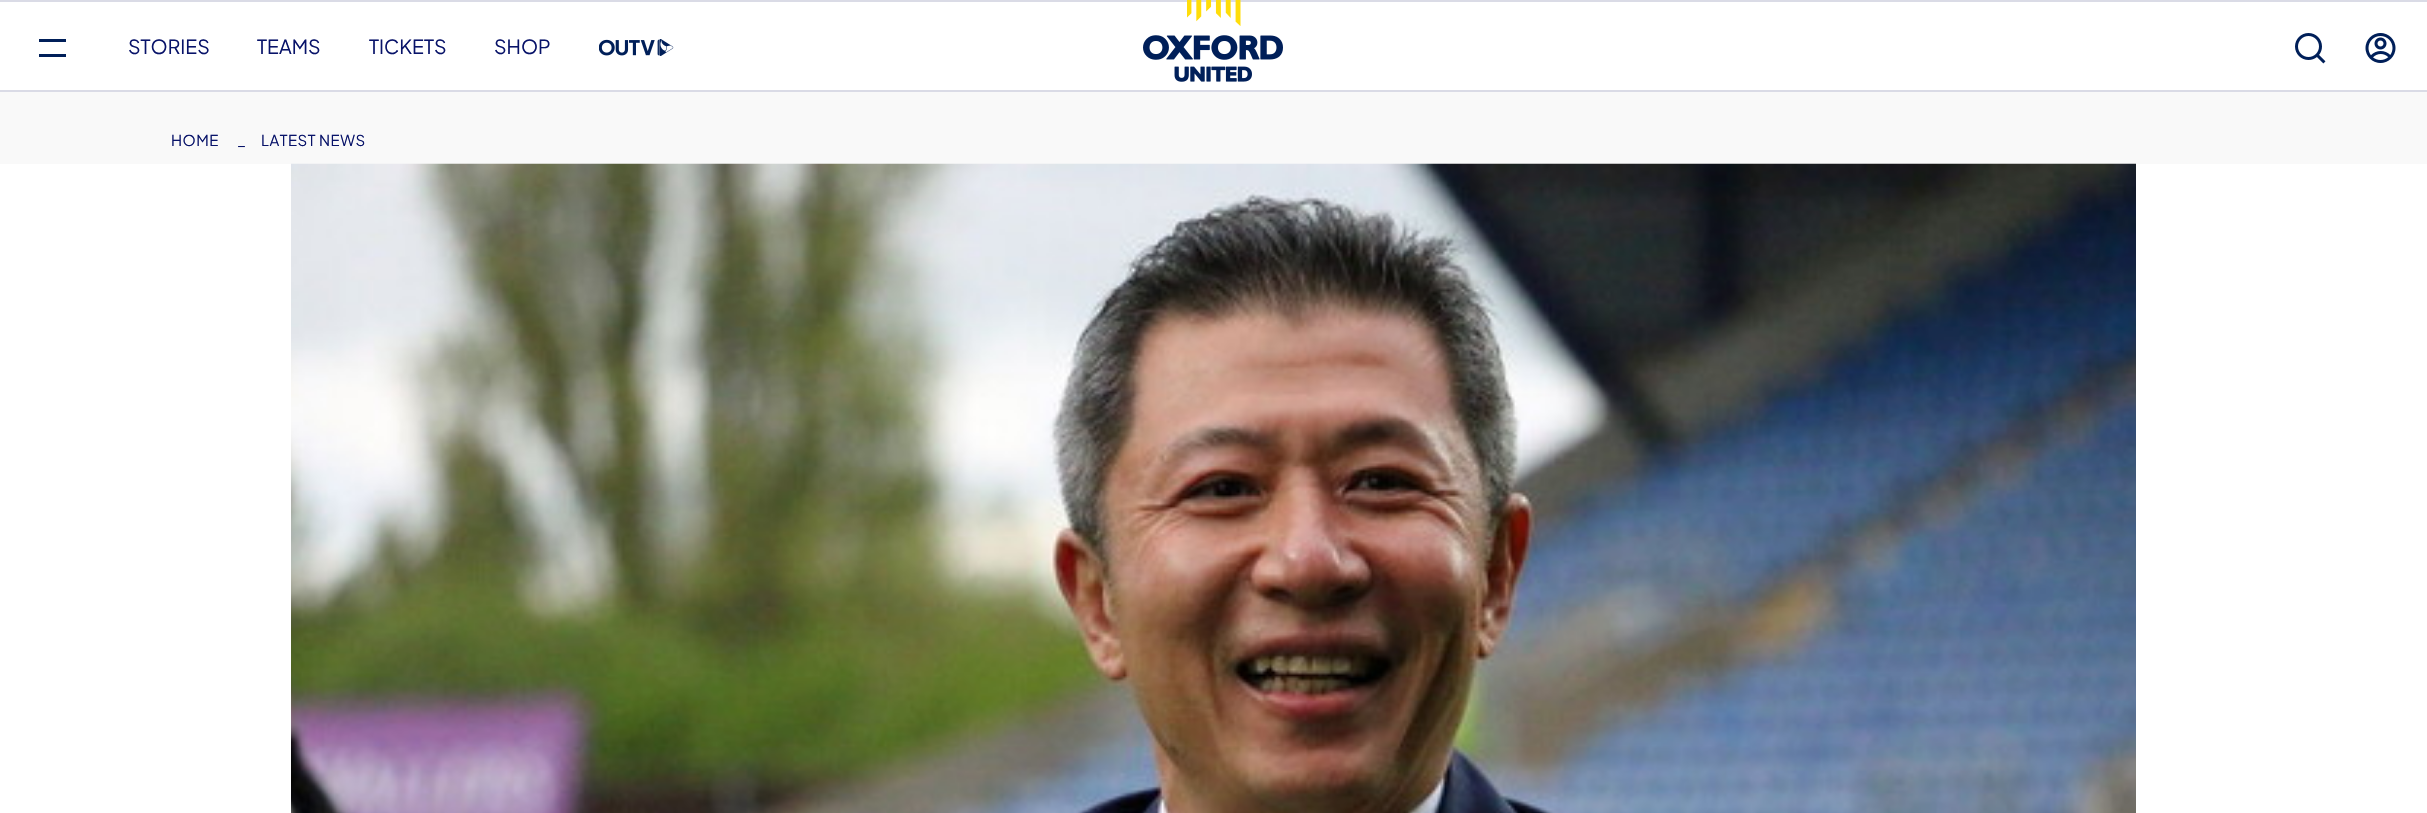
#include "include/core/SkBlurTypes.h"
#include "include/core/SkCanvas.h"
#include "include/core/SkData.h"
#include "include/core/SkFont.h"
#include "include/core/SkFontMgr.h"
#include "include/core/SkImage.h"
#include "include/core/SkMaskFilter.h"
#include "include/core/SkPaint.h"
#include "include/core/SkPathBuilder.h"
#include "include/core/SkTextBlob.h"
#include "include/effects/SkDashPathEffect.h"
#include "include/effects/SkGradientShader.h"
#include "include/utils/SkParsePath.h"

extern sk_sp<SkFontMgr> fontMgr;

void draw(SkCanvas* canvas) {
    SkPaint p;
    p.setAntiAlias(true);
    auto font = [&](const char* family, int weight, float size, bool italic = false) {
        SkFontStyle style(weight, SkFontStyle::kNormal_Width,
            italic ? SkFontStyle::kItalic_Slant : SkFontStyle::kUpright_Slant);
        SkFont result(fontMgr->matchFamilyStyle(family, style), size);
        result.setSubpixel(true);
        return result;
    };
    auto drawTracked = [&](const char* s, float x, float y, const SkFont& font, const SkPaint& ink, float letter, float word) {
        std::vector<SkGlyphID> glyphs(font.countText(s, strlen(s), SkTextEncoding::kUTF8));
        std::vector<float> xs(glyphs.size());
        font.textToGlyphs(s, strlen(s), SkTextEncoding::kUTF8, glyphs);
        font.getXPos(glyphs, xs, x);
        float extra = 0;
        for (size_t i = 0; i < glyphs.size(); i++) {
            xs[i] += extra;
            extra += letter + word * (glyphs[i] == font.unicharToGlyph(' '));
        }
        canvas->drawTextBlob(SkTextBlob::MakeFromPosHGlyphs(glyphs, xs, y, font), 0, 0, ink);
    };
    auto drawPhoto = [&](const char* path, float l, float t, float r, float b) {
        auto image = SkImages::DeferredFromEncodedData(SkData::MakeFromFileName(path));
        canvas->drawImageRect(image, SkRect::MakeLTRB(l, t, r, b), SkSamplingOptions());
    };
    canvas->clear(0xFFF9F9F9);
    p.setColor(0xFFFFFFFF);
    canvas->drawRect(SkRect::MakeLTRB(0, 2, 2427, 90), p);
    p.setColor(0xFFDADBE6);
    canvas->drawRect(SkRect::MakeLTRB(0, 0, 2427, 2), p);
    drawPhoto("media/1.png", 1187, 0, 1241, 26);
    {
        const struct { float l, t, r, b; SkColor color; } items[] = {
            {0, 90, 2427, 92, 0xFFDADBE6},
            {39, 39, 66, 42, 0xFF001F59},
            {39, 54, 66, 57, 0xFF001F59},
        };
        for (auto [l, t, r, b, color] : items) {
            p.setColor(color);
            canvas->drawRect(SkRect::MakeLTRB(l, t, r, b), p);
        }
    }
    auto font1 = font("Plus Jakarta Sans", 400, 19.5f);
    p.setColor(0xFF081369);
    {
        const struct { const char* s; float x, y; } items[] = {
            {"STORIES", 128, 54},
            {"TEAMS", 257, 54},
            {"TICKETS", 369, 54},
            {"SHOP", 494, 54},
        };
        for (auto [s, x, y] : items) {
            canvas->drawString(s, x, y, font1, p);
        }
    }
    drawPhoto("media/2.png", 599, 39, 674, 56);
    drawPhoto("media/3.png", 2295, 33, 2326, 64);
    drawPhoto("media/4.png", 2365, 33, 2396, 63);
    drawPhoto("media/5.png", 1143, 35, 1283, 82);
    auto font2 = font("Plus Jakarta Sans", 400, 15);
    {
        const struct { const char* s; float x, y; } items[] = {
            {"HOME", 171, 146},
            {"_", 237, 146},
            {"LATEST NEWS", 261, 146},
        };
        for (auto [s, x, y] : items) {
            drawTracked(s, x, y, font2, p, 0.5f, 0);
        }
    }
    p.setColor(0xFFFFFFFF);
    canvas->drawRect(SkRect::MakeLTRB(0, 164, 2427, 813), p);
    drawPhoto("media/6.png", 291, 163, 2136, 813);
}
